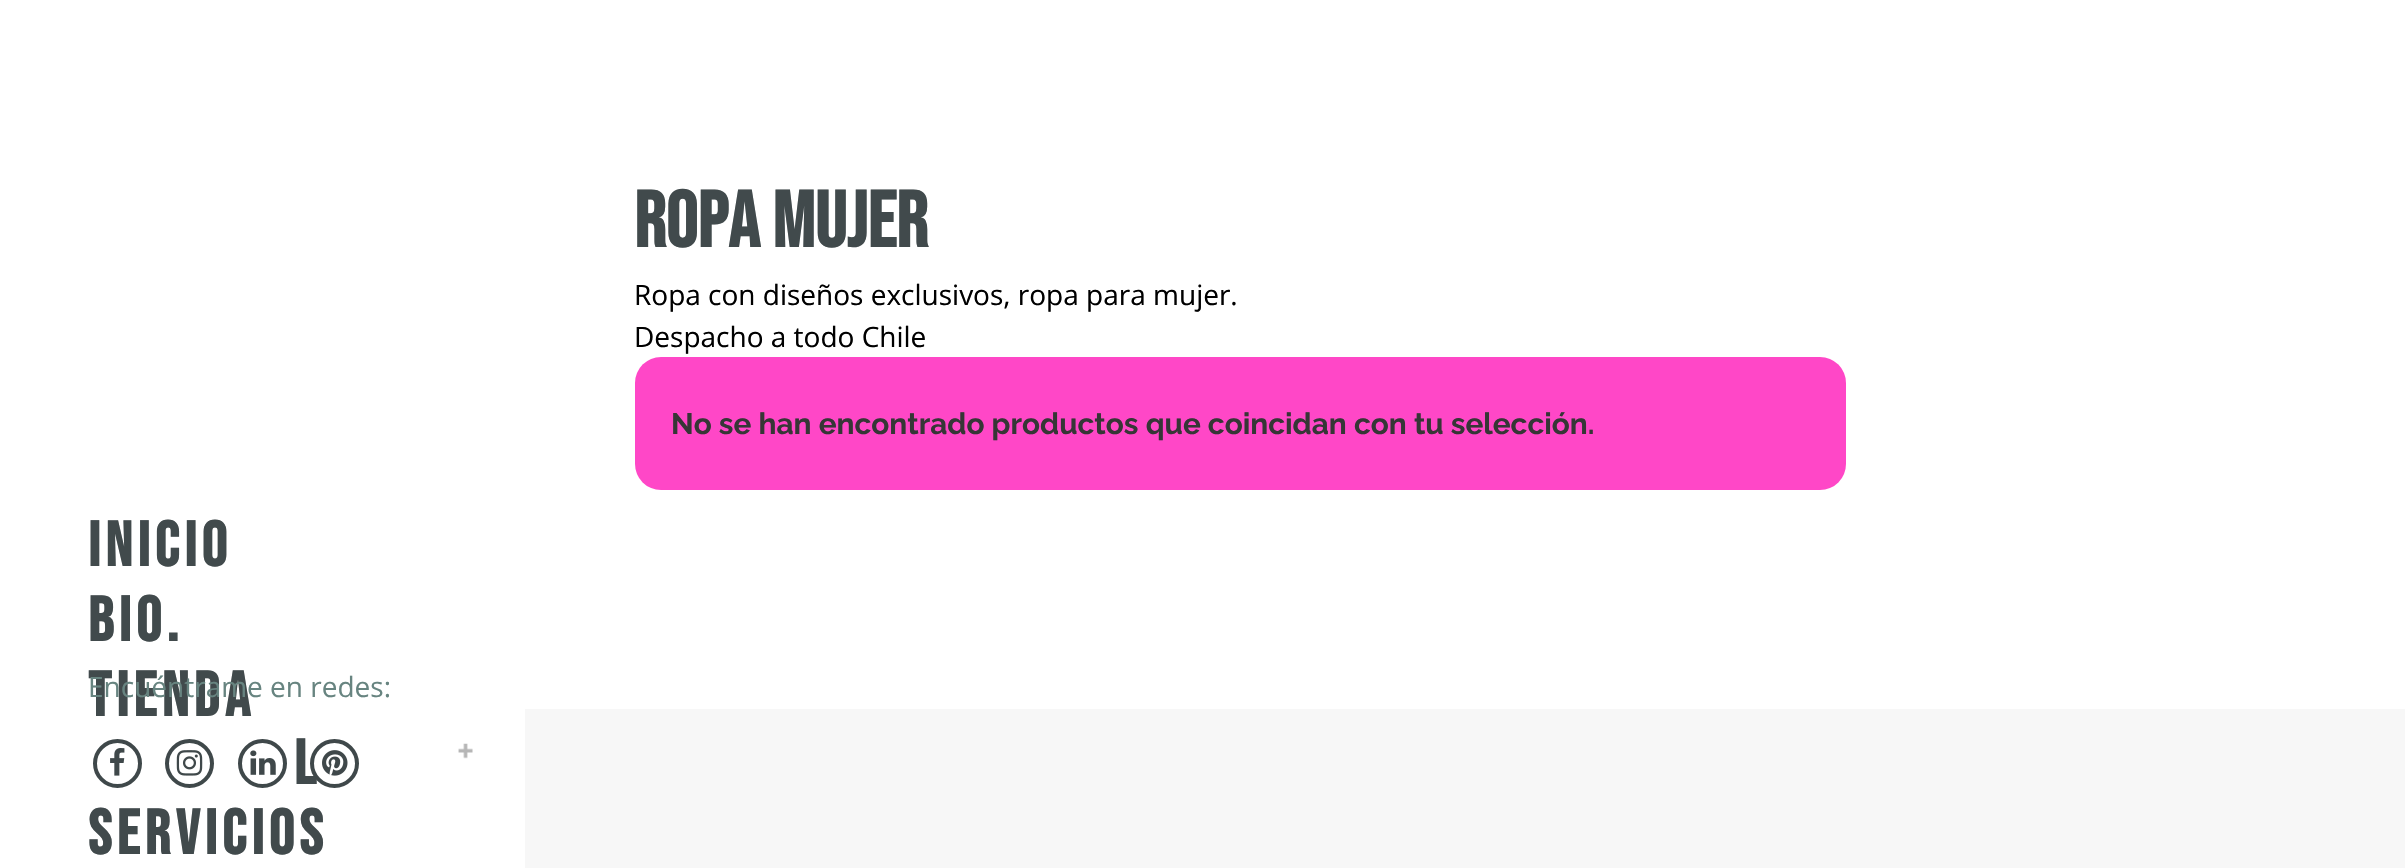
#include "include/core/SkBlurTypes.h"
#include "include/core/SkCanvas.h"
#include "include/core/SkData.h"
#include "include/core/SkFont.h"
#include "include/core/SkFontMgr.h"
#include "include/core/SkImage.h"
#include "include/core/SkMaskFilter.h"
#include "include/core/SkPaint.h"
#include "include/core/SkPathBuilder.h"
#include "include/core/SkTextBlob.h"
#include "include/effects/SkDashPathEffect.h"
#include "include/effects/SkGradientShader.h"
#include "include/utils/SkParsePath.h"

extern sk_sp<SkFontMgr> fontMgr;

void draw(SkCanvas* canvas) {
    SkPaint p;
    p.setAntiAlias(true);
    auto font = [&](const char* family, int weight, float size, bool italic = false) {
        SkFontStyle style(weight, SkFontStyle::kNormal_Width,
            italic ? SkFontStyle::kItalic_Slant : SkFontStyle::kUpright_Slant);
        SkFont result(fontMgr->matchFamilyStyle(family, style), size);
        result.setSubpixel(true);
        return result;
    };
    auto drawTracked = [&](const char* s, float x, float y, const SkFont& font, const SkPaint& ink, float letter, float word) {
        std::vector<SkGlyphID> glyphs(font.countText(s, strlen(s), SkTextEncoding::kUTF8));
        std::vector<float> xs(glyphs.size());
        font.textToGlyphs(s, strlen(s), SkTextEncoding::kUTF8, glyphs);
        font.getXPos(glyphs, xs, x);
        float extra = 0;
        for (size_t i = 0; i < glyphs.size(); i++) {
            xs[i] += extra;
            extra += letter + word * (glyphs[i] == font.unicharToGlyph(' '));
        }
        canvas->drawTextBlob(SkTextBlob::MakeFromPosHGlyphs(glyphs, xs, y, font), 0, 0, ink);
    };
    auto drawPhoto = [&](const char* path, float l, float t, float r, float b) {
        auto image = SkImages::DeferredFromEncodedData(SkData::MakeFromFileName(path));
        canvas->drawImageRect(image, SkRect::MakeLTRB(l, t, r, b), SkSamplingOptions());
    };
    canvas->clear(0xFFFFFFFF);
    auto font1 = font("Bebas Neue", 700, 79);
    p.setColor(0xFF414A4C);
    canvas->drawString("ROPA MUJER", 634, 247, font1, p);
    auto font2 = font("Open Sans", 400, 28);
    p.setColor(0xFF000000);
    canvas->drawString("Ropa con diseños exclusivos, ropa para mujer.", 634, 305, font2, p);
    canvas->drawString("Despacho a todo Chile", 634, 347, font2, p);
    p.setColor(0xFFFF47C7);
    canvas->drawRoundRect(SkRect::MakeLTRB(635, 357, 1846, 490), 26, 26, p);
    auto font3 = font("Raleway", 700, 29.75f);
    p.setColor(0xFF363636);
    canvas->drawString("No se han encontrado productos que coincidan con tu selección.", 671, 434, font3, p);
    auto font4 = font("Bebas Neue", 700, 63);
    p.setColor(0xFF414A4C);
    {
        const struct { const char* s; float x, y; } items[] = {
            {"INICIO", 88, 566},
            {"BIO.", 88, 641},
            {"TIENDA", 88, 716},
            {"L", 294, 784},
        };
        for (auto [s, x, y] : items) {
            drawTracked(s, x, y, font4, p, 5.25f, 0);
        }
    }
    drawPhoto("media/1.png", 458, 743, 473, 759);
    drawTracked("SERVICIOS", 88, 854, font4, p, 5.25f, 0);
    p.setColor(0xFF678480);
    canvas->drawString("Encuéntrame en redes:", 88, 697, font2, p);
    p.setStyle(SkPaint::kStroke_Style);
    p.setStrokeWidth(4);
    p.setColor(0xFF3F484A);
    canvas->drawCircle(117.5f, 763.5f, 22.5f, p);
    drawPhoto("media/2.png", 110, 748, 125, 776);
    canvas->drawCircle(189.5f, 763.5f, 22.5f, p);
    drawPhoto("media/3.png", 176, 750, 203, 776);
    canvas->drawCircle(262.5f, 763.5f, 22.5f, p);
    drawPhoto("media/4.png", 250, 750, 276, 775);
    p.setStyle(SkPaint::kFill_Style);
    p.setColor(0xFFFFFFFF);
    canvas->drawCircle(334.5f, 763.5f, 22.5f, p);
    p.setStyle(SkPaint::kStroke_Style);
    p.setColor(0xFF3F484A);
    canvas->drawCircle(334.5f, 763.5f, 22.5f, p);
    drawPhoto("media/5.png", 322, 750, 348, 776);
    p.setStyle(SkPaint::kFill_Style);
    p.setColor(0xFFF7F7F7);
    canvas->drawRect(SkRect::MakeLTRB(525, 709, 2405, 868), p);
}
